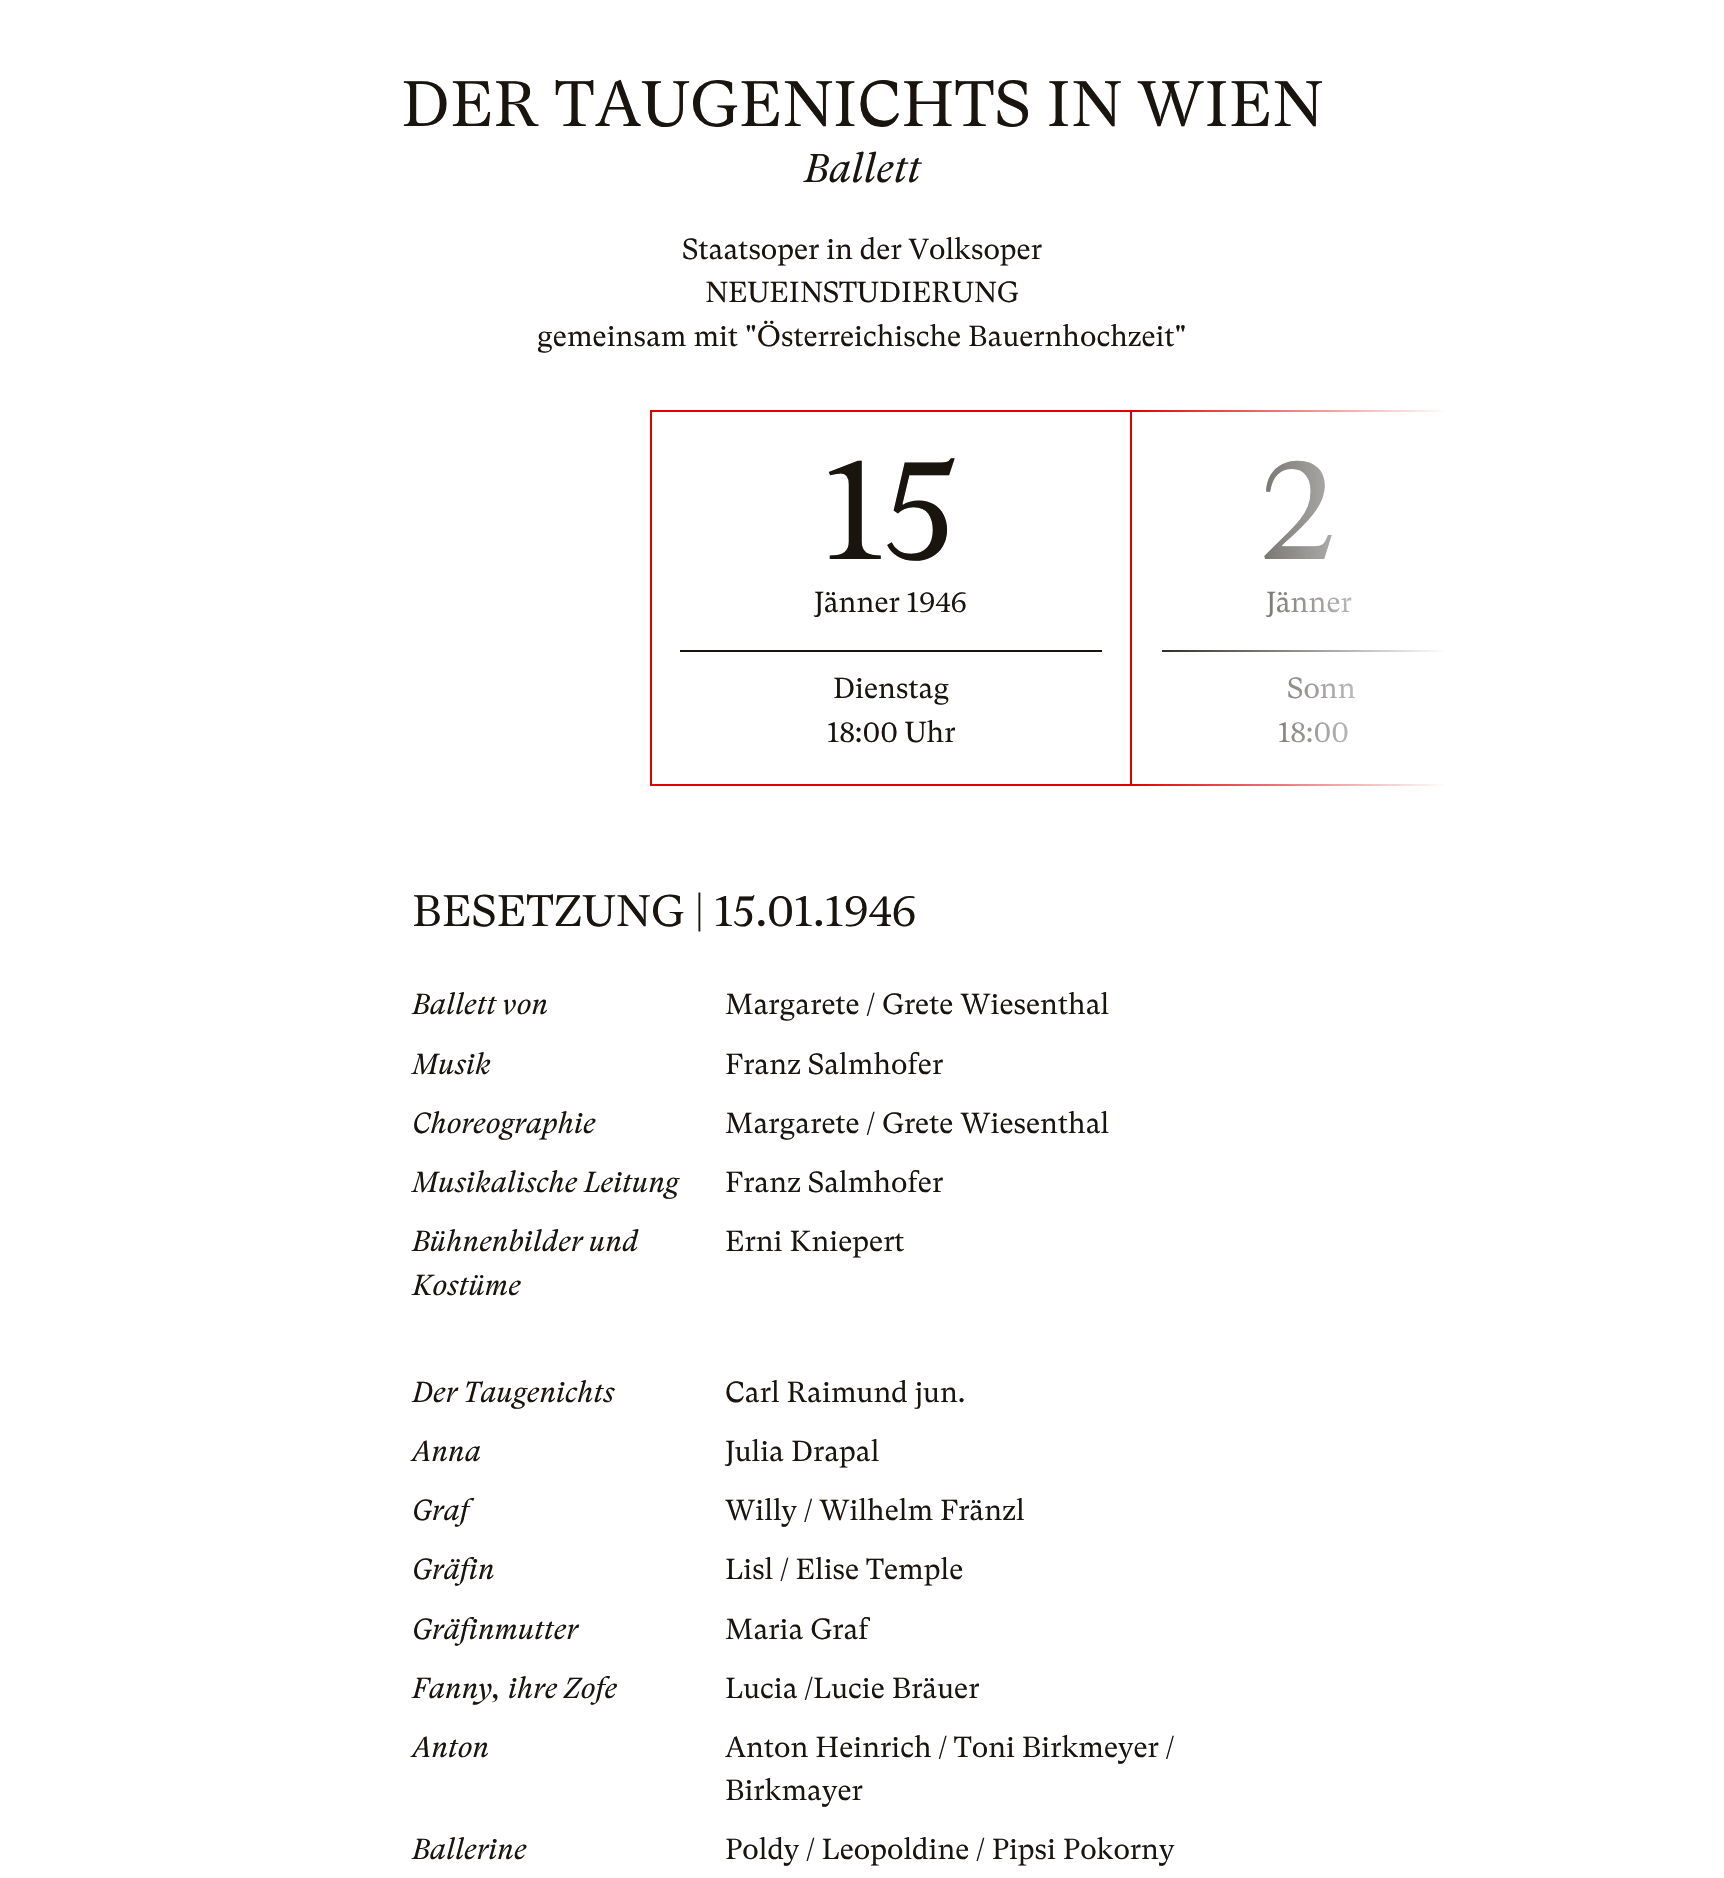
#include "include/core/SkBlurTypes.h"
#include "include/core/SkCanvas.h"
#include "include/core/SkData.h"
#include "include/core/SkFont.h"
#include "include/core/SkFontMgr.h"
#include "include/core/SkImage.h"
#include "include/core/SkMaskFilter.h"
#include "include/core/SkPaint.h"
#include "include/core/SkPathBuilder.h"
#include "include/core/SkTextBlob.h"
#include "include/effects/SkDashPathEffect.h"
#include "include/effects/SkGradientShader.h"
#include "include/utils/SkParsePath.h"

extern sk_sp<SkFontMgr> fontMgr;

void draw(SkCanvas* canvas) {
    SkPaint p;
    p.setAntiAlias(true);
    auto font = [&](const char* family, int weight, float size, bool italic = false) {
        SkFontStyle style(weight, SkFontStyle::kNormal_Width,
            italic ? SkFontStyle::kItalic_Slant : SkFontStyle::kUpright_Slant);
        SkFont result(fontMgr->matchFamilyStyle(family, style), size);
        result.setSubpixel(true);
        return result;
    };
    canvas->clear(0xFFFFFFFF);
    auto font1 = font("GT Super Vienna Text", 400, 64);
    p.setColor(0xFF19140E);
    canvas->drawString("DER TAUGENICHTS IN WIEN", 401, 126, font1, p);
    auto font2 = font("GT Super Vienna Text", 400, 40, true);
    canvas->drawString("Ballett", 804, 182, font2, p);
    auto font3 = font("GT Super Vienna Text", 400, 28.8f);
    {
        const struct { const char* s; float x, y; } items[] = {
            {"Staatsoper in der Volksoper", 682, 259},
            {"NEUEINSTUDIERUNG", 705, 302},
            {"gemeinsam mit \"Österreichische Bauernhochzeit\"", 537, 346},
        };
        for (auto [s, x, y] : items) {
            canvas->drawString(s, x, y, font3, p);
        }
    }
    p.setStyle(SkPaint::kStroke_Style);
    p.setStrokeWidth(2);
    p.setColor(0xFFDE0000);
    canvas->drawRect(SkRect::MakeLTRB(651, 411, 1131, 785), p);
    auto font4 = font("GT Super Vienna Text", 400, 144);
    p.setStyle(SkPaint::kFill_Style);
    p.setColor(0xFF19140E);
    canvas->drawString("15", 823, 559, font4, p);
    canvas->drawRect(SkRect::MakeLTRB(680, 650, 1102, 652), p);
    {
        const struct { const char* s; float x, y; } items[] = {
            {"Jänner 1946", 814, 612},
            {"Dienstag", 833, 698},
            {"18:00 Uhr", 827, 742},
        };
        for (auto [s, x, y] : items) {
            canvas->drawString(s, x, y, font3, p);
        }
    }
    p.setStyle(SkPaint::kStroke_Style);
    p.setColor(0xFFDE0000);
    canvas->drawRect(SkRect::MakeLTRB(1131, 411, 1553, 785), p);
    p.setStyle(SkPaint::kFill_Style);
    p.setColor(0xFF19140E);
    canvas->drawString("2", 1260, 559, font4, p);
    canvas->drawRect(SkRect::MakeLTRB(1162, 650, 1446, 652), p);
    {
        const struct { const char* s; float x, y; } items[] = {
            {"Jänner", 1266, 612},
            {"Sonn", 1287, 698},
            {"18:00", 1278, 742},
        };
        for (auto [s, x, y] : items) {
            canvas->drawString(s, x, y, font3, p);
        }
    }
    {
        const SkColor colors[] = {0xFFFFFFFF, 0x00FFFFFF};
        const float stops[] = {0.25f, 1};
        const SkPoint ends[] = {{1554, 598}, {1130, 598}};
        p.setShader(SkGradientShader::MakeLinear(ends, colors, stops, 2, SkTileMode::kClamp));
        p.setAlpha(255);
    }
    canvas->drawRect(SkRect::MakeLTRB(1137, 410, 1554, 786), p);
    auto font5 = font("GT Super Vienna Text", 400, 44);
    p.setShader(nullptr);
    p.setColor(0xFF19140E);
    canvas->drawString("BESETZUNG | 15.01.1946", 412, 926, font5, p);
    auto font6 = font("GT Super Vienna Text", 400, 28.8f, true);
    canvas->drawString("Ballett von", 412, 1014, font6, p);
    canvas->drawString("Margarete / Grete Wiesenthal", 725, 1014, font3, p);
    canvas->drawString("Musik", 412, 1074, font6, p);
    canvas->drawString("Franz Salmhofer", 725, 1074, font3, p);
    canvas->drawString("Choreographie", 412, 1133, font6, p);
    canvas->drawString("Margarete / Grete Wiesenthal", 725, 1133, font3, p);
    canvas->drawString("Musikalische Leitung", 412, 1192, font6, p);
    canvas->drawString("Franz Salmhofer", 725, 1192, font3, p);
    canvas->drawString("Bühnenbilder und", 412, 1251, font6, p);
    canvas->drawString("Kostüme", 412, 1295, font6, p);
    canvas->drawString("Erni Kniepert", 725, 1251, font3, p);
    canvas->drawString("Der Taugenichts", 412, 1402, font6, p);
    canvas->drawString("Carl Raimund jun.", 725, 1402, font3, p);
    canvas->drawString("Anna", 412, 1461, font6, p);
    canvas->drawString("Julia Drapal", 725, 1461, font3, p);
    canvas->drawString("Graf", 412, 1520, font6, p);
    canvas->drawString("Willy / Wilhelm Fränzl", 725, 1520, font3, p);
    canvas->drawString("Gräfin", 412, 1579, font6, p);
    canvas->drawString("Lisl / Elise Temple", 725, 1579, font3, p);
    canvas->drawString("Gräfinmutter", 412, 1639, font6, p);
    canvas->drawString("Maria Graf", 725, 1639, font3, p);
    canvas->drawString("Fanny, ihre Zofe", 412, 1698, font6, p);
    canvas->drawString("Lucia /Lucie Bräuer", 725, 1698, font3, p);
    canvas->drawString("Anton", 412, 1757, font6, p);
    canvas->drawString("Anton Heinrich / Toni Birkmeyer /", 725, 1757, font3, p);
    canvas->drawString("Birkmayer", 725, 1800, font3, p);
    canvas->drawString("Ballerine", 412, 1859, font6, p);
    canvas->drawString("Poldy / Leopoldine / Pipsi Pokorny", 725, 1859, font3, p);
}
